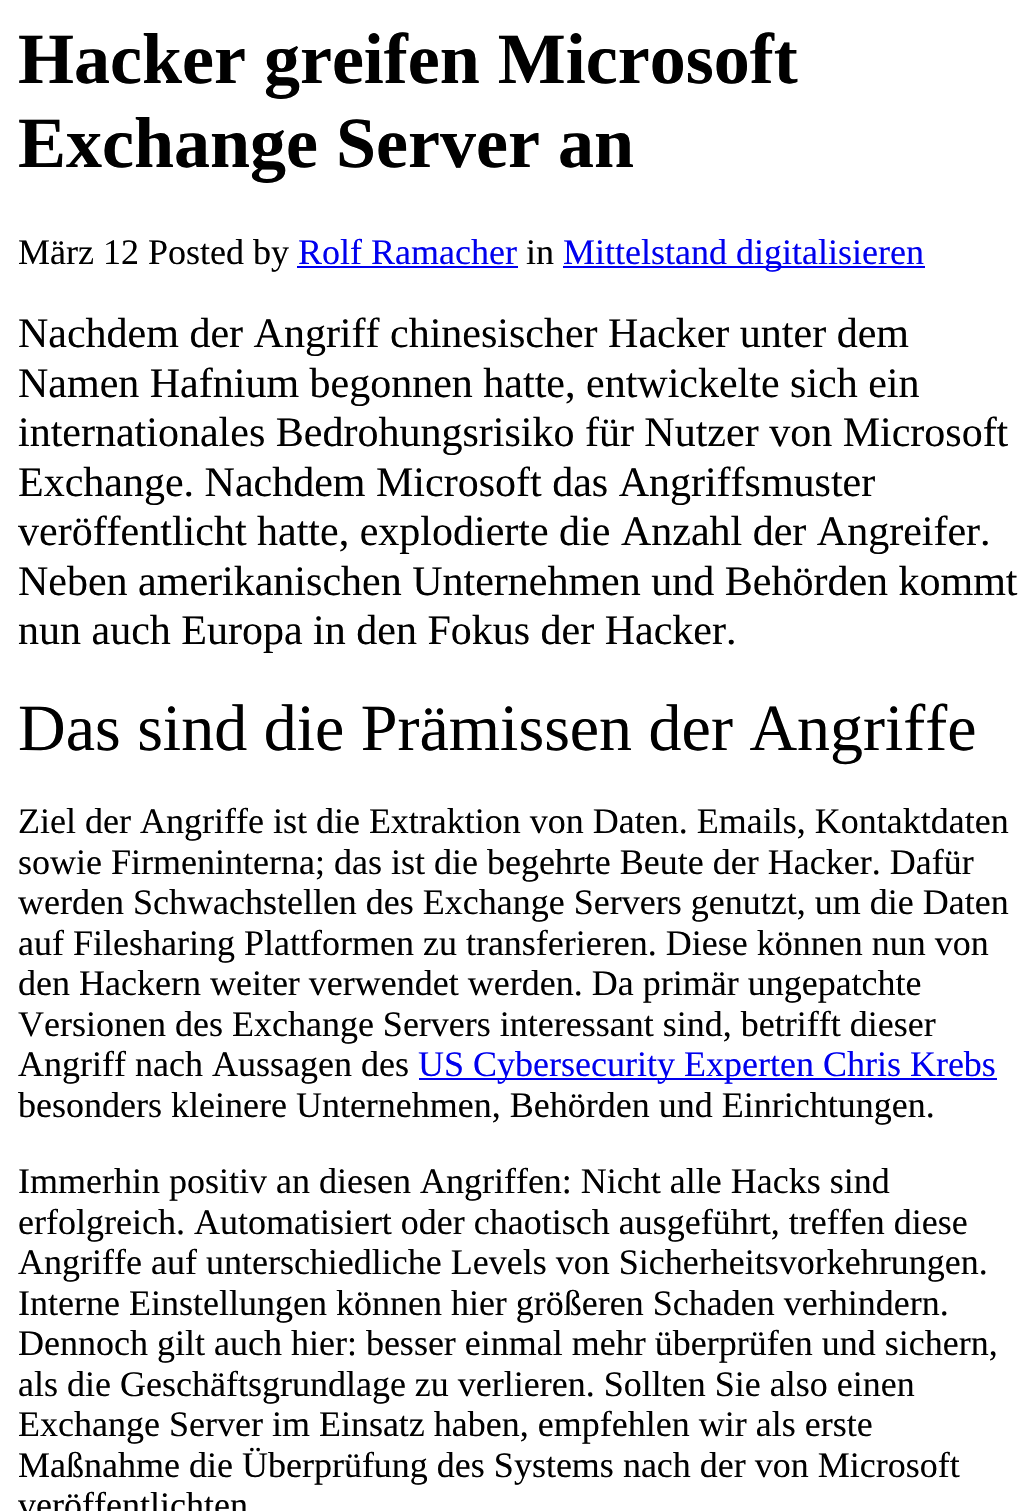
#include "include/core/SkBlurTypes.h"
#include "include/core/SkCanvas.h"
#include "include/core/SkData.h"
#include "include/core/SkFont.h"
#include "include/core/SkFontMgr.h"
#include "include/core/SkImage.h"
#include "include/core/SkMaskFilter.h"
#include "include/core/SkPaint.h"
#include "include/core/SkPathBuilder.h"
#include "include/core/SkTextBlob.h"
#include "include/effects/SkDashPathEffect.h"
#include "include/effects/SkGradientShader.h"
#include "include/utils/SkParsePath.h"

extern sk_sp<SkFontMgr> fontMgr;

void draw(SkCanvas* canvas) {
    SkPaint p;
    p.setAntiAlias(true);
    auto font = [&](const char* family, int weight, float size, bool italic = false) {
        SkFontStyle style(weight, SkFontStyle::kNormal_Width,
            italic ? SkFontStyle::kItalic_Slant : SkFontStyle::kUpright_Slant);
        SkFont result(fontMgr->matchFamilyStyle(family, style), size);
        result.setSubpixel(true);
        return result;
    };
    canvas->clear(0xFFFFFFFF);
    auto font1 = font("Liberation Serif", 700, 72);
    p.setColor(0xFF000000);
    canvas->drawString("Hacker greifen Microsoft", 18, 83, font1, p);
    canvas->drawString("Exchange Server an", 18, 167, font1, p);
    auto font2 = font("Liberation Serif", 400, 36);
    canvas->drawString("März 12 Posted by", 18, 264, font2, p);
    p.setColor(0xFF0000EE);
    canvas->drawString("Rolf Ramacher", 298, 264, font2, p);
    canvas->drawRect(SkRect::MakeLTRB(297, 266, 518, 268), p);
    p.setColor(0xFF000000);
    canvas->drawString("in", 526, 264, font2, p);
    p.setColor(0xFF0000EE);
    canvas->drawRect(SkRect::MakeLTRB(563, 266, 925, 268), p);
    canvas->drawString("Mittelstand digitalisieren", 563, 264, font2, p);
    auto font3 = font("Liberation Serif", 400, 42);
    p.setColor(0xFF000000);
    {
        const struct { const char* s; float x, y; } items[] = {
            {"Nachdem der Angriff chinesischer Hacker unter dem", 18, 347},
            {"Namen Hafnium begonnen hatte, entwickelte sich ein", 18, 397},
            {"internationales Bedrohungsrisiko für Nutzer von Microsoft", 18, 446},
            {"Exchange. Nachdem Microsoft das Angriffsmuster", 18, 496},
            {"veröffentlicht hatte, explodierte die Anzahl der Angreifer.", 18, 545},
            {"Neben amerikanischen Unternehmen und Behörden kommt", 18, 595},
            {"nun auch Europa in den Fokus der Hacker.", 18, 644},
        };
        for (auto [s, x, y] : items) {
            canvas->drawString(s, x, y, font3, p);
        }
    }
    auto font4 = font("Liberation Serif", 400, 66);
    canvas->drawString("Das sind die Prämissen der Angriffe", 18, 750, font4, p);
    {
        const struct { const char* s; float x, y; } items[] = {
            {"Ziel der Angriffe ist die Extraktion von Daten. Emails, Kontaktdaten", 18, 833},
            {"sowie Firmeninterna; das ist die begehrte Beute der Hacker. Dafür", 18, 874},
            {"werden Schwachstellen des Exchange Servers genutzt, um die Daten", 18, 914},
            {"auf Filesharing Plattformen zu transferieren. Diese können nun von", 18, 955},
            {"den Hackern weiter verwendet werden. Da primär ungepatchte", 18, 995},
            {"Versionen des Exchange Servers interessant sind, betrifft dieser", 18, 1036},
            {"Angriff nach Aussagen des", 18, 1076},
        };
        for (auto [s, x, y] : items) {
            canvas->drawString(s, x, y, font2, p);
        }
    }
    p.setColor(0xFF0000EE);
    canvas->drawRect(SkRect::MakeLTRB(419, 1078, 997, 1080), p);
    canvas->drawString("US Cybersecurity Experten Chris Krebs", 418, 1076, font2, p);
    p.setColor(0xFF000000);
    {
        const struct { const char* s; float x, y; } items[] = {
            {"besonders kleinere Unternehmen, Behörden und Einrichtungen.", 18, 1117},
            {"Immerhin positiv an diesen Angriffen: Nicht alle Hacks sind", 18, 1193},
            {"erfolgreich. Automatisiert oder chaotisch ausgeführt, treffen diese", 18, 1234},
            {"Angriffe auf unterschiedliche Levels von Sicherheitsvorkehrungen.", 18, 1274},
            {"Interne Einstellungen können hier größeren Schaden verhindern.", 18, 1315},
            {"Dennoch gilt auch hier: besser einmal mehr überprüfen und sichern,", 18, 1355},
            {"als die Geschäftsgrundlage zu verlieren. Sollten Sie also einen", 18, 1396},
            {"Exchange Server im Einsatz haben, empfehlen wir als erste", 18, 1436},
            {"Maßnahme die Überprüfung des Systems nach der von Microsoft", 18, 1477},
            {"veröffentlichten", 18, 1517},
        };
        for (auto [s, x, y] : items) {
            canvas->drawString(s, x, y, font2, p);
        }
    }
}
